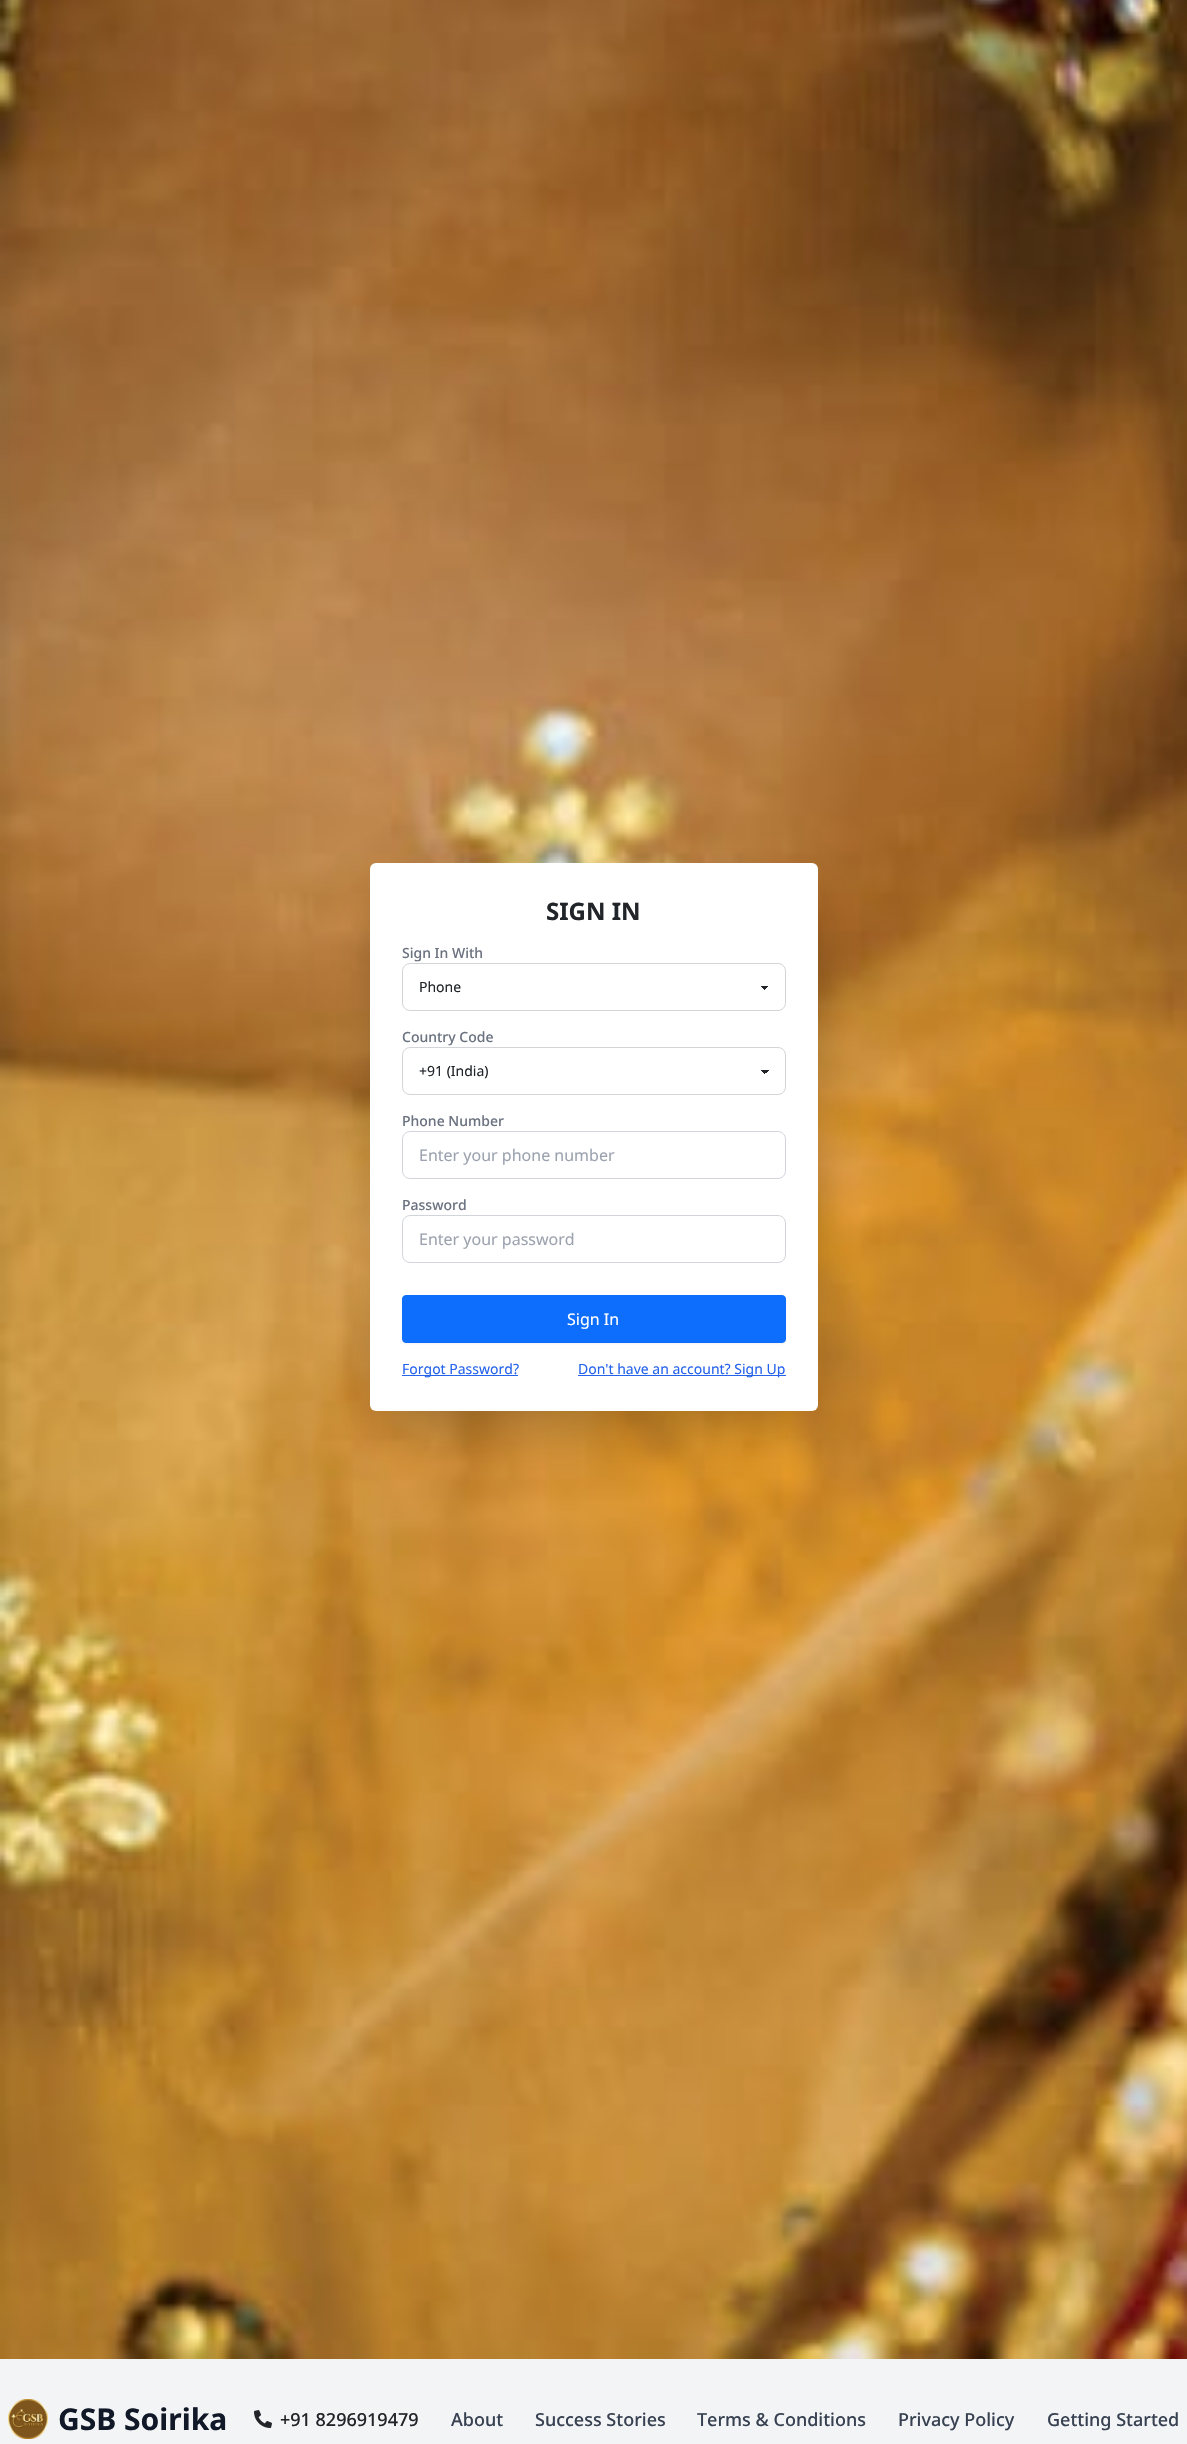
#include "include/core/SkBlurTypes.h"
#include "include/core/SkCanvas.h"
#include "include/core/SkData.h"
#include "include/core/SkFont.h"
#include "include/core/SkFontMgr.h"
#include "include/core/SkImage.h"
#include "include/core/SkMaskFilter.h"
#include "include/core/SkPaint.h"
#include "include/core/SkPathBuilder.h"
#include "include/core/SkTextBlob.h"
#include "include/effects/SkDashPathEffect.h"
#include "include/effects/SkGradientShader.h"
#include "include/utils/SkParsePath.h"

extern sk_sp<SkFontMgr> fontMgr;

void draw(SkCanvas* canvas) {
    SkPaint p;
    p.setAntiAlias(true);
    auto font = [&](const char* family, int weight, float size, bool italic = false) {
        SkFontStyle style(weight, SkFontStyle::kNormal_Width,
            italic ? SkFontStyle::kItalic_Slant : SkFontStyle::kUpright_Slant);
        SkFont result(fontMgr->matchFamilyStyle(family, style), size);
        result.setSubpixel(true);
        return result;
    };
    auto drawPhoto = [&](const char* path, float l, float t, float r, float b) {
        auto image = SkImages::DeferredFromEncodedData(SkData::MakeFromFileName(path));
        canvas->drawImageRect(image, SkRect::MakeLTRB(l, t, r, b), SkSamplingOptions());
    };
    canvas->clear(0xFFF3F4F6);
    drawPhoto("media/1.png", 0, 0, 1187, 2359);
    p.setColor(0x40000000);
    p.setMaskFilter(SkMaskFilter::MakeBlur(kNormal_SkBlurStyle, 25));
    canvas->drawRect(SkRect::MakeLTRB(382, 900, 806, 1424), p);
    p.setMaskFilter(nullptr);
    p.setColor(0xFFFFFFFF);
    canvas->drawRoundRect(SkRect::MakeLTRB(370, 863, 818, 1411), 6, 6, p);
    auto font1 = font("Noto Sans", 700, 24);
    p.setColor(0xFF212529);
    canvas->drawString("SIGN IN", 546, 920, font1, p);
    auto font2 = font("Noto Sans", 500, 14);
    p.setColor(0xFF6B7280);
    canvas->drawString("Sign In With", 402, 958, font2, p);
    {
        const SkColor colors[] = {0xFF212529, 0xFFFFFFFF};
        const float stops[] = {0.5f, 0.5f};
        const SkPoint ends[] = {{765, 986}, {769, 990}};
        p.setShader(SkGradientShader::MakeLinear(ends, colors, stops, 2, SkTileMode::kClamp));
        p.setAlpha(255);
    }
    canvas->drawRect(SkRect::MakeLTRB(765, 986, 769, 989), p);
    {
        const SkColor colors[] = {0xFFFFFFFF, 0xFF212529};
        const float stops[] = {0.5f, 0.5f};
        const SkPoint ends[] = {{761, 990}, {765, 986}};
        p.setShader(SkGradientShader::MakeLinear(ends, colors, stops, 2, SkTileMode::kClamp));
        p.setAlpha(255);
    }
    canvas->drawRect(SkRect::MakeLTRB(761, 986, 765, 990), p);
    p.setStyle(SkPaint::kStroke_Style);
    p.setStrokeWidth(1);
    p.setShader(nullptr);
    p.setColor(0xFFD2D4D7);
    canvas->drawRoundRect(SkRect::MakeLTRB(402.5f, 963.5f, 785.5f, 1010.5f), 7.5f, 7.5f, p);
    auto font3 = font("Noto Sans", 400, 14);
    p.setStyle(SkPaint::kFill_Style);
    p.setColor(0xFF212529);
    canvas->drawString("Phone", 419, 992, font3, p);
    p.setColor(0xFF6B7280);
    canvas->drawString("Country Code", 402, 1042, font2, p);
    {
        const SkColor colors[] = {0xFF212529, 0xFFFFFFFF};
        const float stops[] = {0.5f, 0.5f};
        const SkPoint ends[] = {{765, 1070}, {769, 1074}};
        p.setShader(SkGradientShader::MakeLinear(ends, colors, stops, 2, SkTileMode::kClamp));
        p.setAlpha(255);
    }
    canvas->drawRect(SkRect::MakeLTRB(765, 1070, 769, 1073), p);
    {
        const SkColor colors[] = {0xFFFFFFFF, 0xFF212529};
        const float stops[] = {0.5f, 0.5f};
        const SkPoint ends[] = {{761, 1074}, {765, 1070}};
        p.setShader(SkGradientShader::MakeLinear(ends, colors, stops, 2, SkTileMode::kClamp));
        p.setAlpha(255);
    }
    canvas->drawRect(SkRect::MakeLTRB(761, 1070, 765, 1074), p);
    p.setStyle(SkPaint::kStroke_Style);
    p.setShader(nullptr);
    p.setColor(0xFFD2D4D7);
    canvas->drawRoundRect(SkRect::MakeLTRB(402.5f, 1047.5f, 785.5f, 1094.5f), 7.5f, 7.5f, p);
    p.setStyle(SkPaint::kFill_Style);
    p.setColor(0xFF212529);
    canvas->drawString("+91 (India)", 419, 1076, font3, p);
    p.setColor(0xFF6B7280);
    canvas->drawString("Phone Number", 402, 1126, font2, p);
    p.setStyle(SkPaint::kStroke_Style);
    p.setColor(0xFFD1D5DB);
    canvas->drawRoundRect(SkRect::MakeLTRB(402.5f, 1131.5f, 785.5f, 1178.5f), 7.5f, 7.5f, p);
    auto font4 = font("Noto Sans", 400, 16);
    p.setStyle(SkPaint::kFill_Style);
    p.setColor(0xFF9CA3AF);
    canvas->drawString("Enter your phone number", 419, 1161, font4, p);
    p.setColor(0xFF6B7280);
    canvas->drawString("Password", 402, 1210, font2, p);
    p.setStyle(SkPaint::kStroke_Style);
    p.setColor(0xFFD1D5DB);
    canvas->drawRoundRect(SkRect::MakeLTRB(402.5f, 1215.5f, 785.5f, 1262.5f), 7.5f, 7.5f, p);
    p.setStyle(SkPaint::kFill_Style);
    p.setColor(0xFF9CA3AF);
    canvas->drawString("Enter your password", 419, 1245, font4, p);
    p.setColor(0x0D000000);
    p.setMaskFilter(SkMaskFilter::MakeBlur(kNormal_SkBlurStyle, 1));
    canvas->drawRoundRect(SkRect::MakeLTRB(402, 1296, 786, 1344), 4, 4, p);
    p.setMaskFilter(nullptr);
    p.setColor(0xFF0D6EFD);
    canvas->drawRoundRect(SkRect::MakeLTRB(402.5f, 1295.5f, 785.5f, 1342.5f), 3.5f, 3.5f, p);
    p.setStyle(SkPaint::kStroke_Style);
    canvas->drawRoundRect(SkRect::MakeLTRB(402.5f, 1295.5f, 785.5f, 1342.5f), 3.5f, 3.5f, p);
    p.setStyle(SkPaint::kFill_Style);
    p.setColor(0xFFFFFFFF);
    canvas->drawString("Sign In", 567, 1325, font4, p);
    p.setColor(0xFF2563EB);
    canvas->drawRect(SkRect::MakeLTRB(402, 1375, 518, 1376), p);
    canvas->drawString("Forgot Password?", 402, 1374, font3, p);
    canvas->drawRect(SkRect::MakeLTRB(578, 1375, 786, 1376), p);
    canvas->drawString("Don't have an account? Sign Up", 578, 1374, font3, p);
    drawPhoto("media/2.png", 8, 2399, 48, 2439);
    auto font5 = font("Noto Sans", 700, 30);
    p.setColor(0xFF111827);
    canvas->drawString("GSB Soirika", 58, 2430, font5, p);
    drawPhoto("media/3.png", 254, 2410, 272, 2428);
    auto font6 = font("Noto Sans", 500, 18);
    p.setColor(0xFF212529);
    canvas->drawString("+91 8296919479", 280, 2426, font6, p);
    p.setColor(0xFF374151);
    {
        const struct { const char* s; float x, y; } items[] = {
            {"About", 451, 2426},
            {"Success Stories", 535, 2426},
            {"Terms & Conditions", 697, 2426},
            {"Privacy Policy", 898, 2426},
            {"Getting Started", 1047, 2426},
        };
        for (auto [s, x, y] : items) {
            canvas->drawString(s, x, y, font6, p);
        }
    }
}
